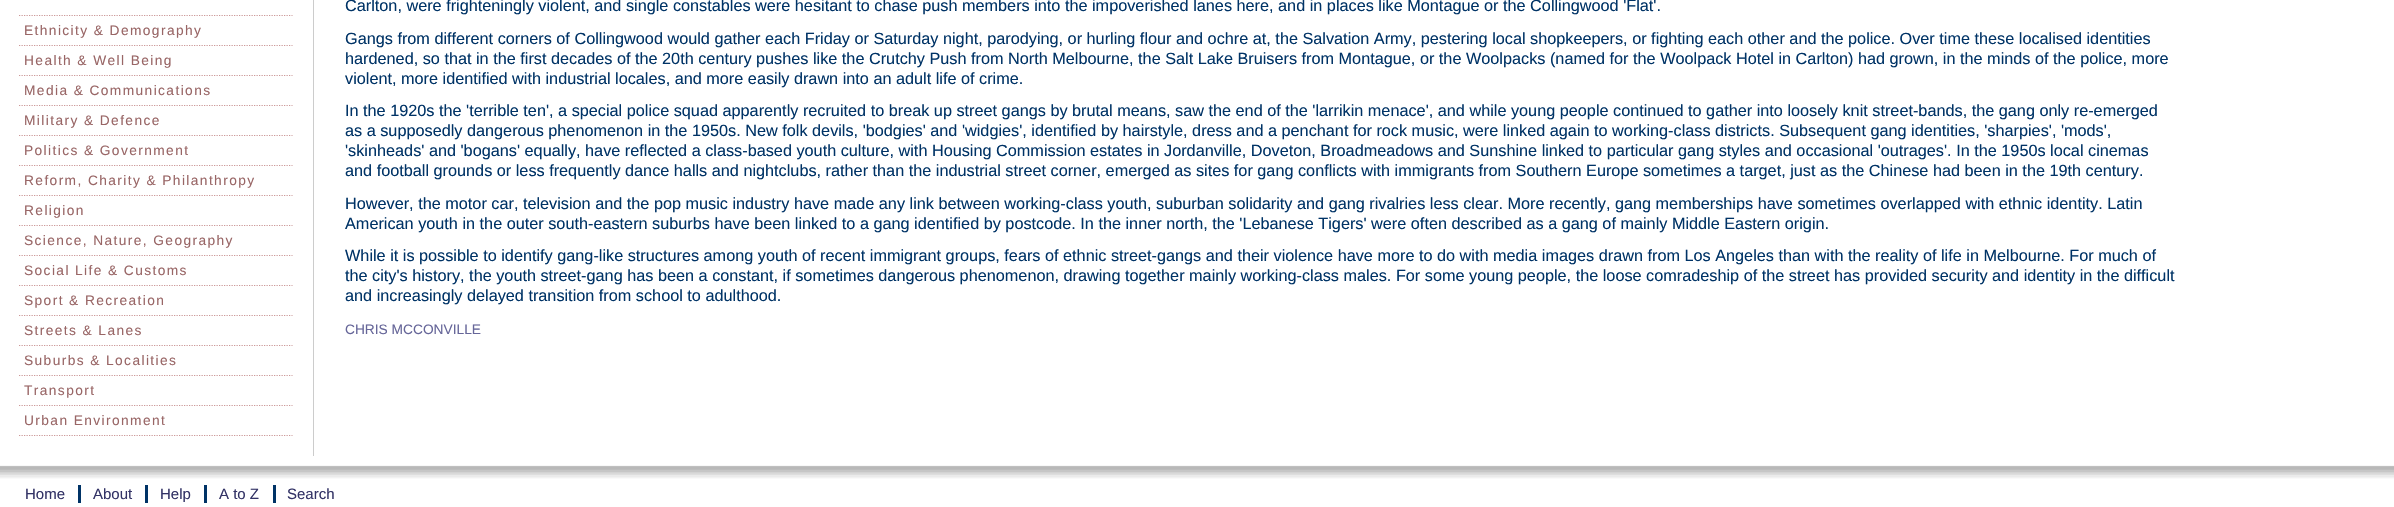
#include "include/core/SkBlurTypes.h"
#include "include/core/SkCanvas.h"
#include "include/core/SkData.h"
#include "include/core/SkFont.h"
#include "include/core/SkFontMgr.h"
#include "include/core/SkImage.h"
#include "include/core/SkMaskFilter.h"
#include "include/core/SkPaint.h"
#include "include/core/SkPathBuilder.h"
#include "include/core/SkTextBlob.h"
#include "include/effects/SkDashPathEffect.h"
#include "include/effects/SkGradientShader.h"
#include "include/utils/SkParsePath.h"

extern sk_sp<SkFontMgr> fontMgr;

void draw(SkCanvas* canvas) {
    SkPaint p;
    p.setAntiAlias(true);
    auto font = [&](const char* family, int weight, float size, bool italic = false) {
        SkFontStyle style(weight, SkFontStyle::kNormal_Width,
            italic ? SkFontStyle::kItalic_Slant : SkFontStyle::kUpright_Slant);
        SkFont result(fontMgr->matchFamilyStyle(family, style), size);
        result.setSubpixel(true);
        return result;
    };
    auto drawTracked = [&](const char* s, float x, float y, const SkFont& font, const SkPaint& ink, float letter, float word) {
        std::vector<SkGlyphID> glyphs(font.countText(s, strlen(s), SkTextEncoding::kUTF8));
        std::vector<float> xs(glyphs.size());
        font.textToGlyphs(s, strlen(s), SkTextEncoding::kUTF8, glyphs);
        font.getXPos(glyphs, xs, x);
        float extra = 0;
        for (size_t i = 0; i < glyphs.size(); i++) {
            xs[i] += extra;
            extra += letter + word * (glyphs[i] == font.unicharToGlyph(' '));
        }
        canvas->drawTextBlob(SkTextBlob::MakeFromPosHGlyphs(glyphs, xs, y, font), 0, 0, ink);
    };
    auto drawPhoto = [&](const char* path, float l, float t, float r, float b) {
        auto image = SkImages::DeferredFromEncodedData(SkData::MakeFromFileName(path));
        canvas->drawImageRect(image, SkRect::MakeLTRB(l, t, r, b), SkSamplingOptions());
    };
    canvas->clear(0xFFFFFFFF);
    p.setStyle(SkPaint::kStroke_Style);
    p.setStrokeWidth(1.2f);
    p.setColor(0xFFCC9999);
    p.setPathEffect(SkDashPathEffect::Make({{1.25f, 1.25f}}, 0));
    canvas->drawPath(SkPathBuilder().moveTo(19, 15.5f).lineTo(292.5f, 15.5f).detach(), p);
    p.setPathEffect(nullptr);
    p.setPathEffect(SkDashPathEffect::Make({{1.25f, 1.25f}}, 0));
    canvas->drawPath(SkPathBuilder().moveTo(19, 45.5f).lineTo(292.5f, 45.5f).detach(), p);
    p.setPathEffect(nullptr);
    auto font1 = font("Liberation Sans", 400, 13.75f);
    p.setStyle(SkPaint::kFill_Style);
    p.setColor(0xFF996666);
    drawTracked("Ethnicity & Demography", 24, 35, font1, p, 1.4f, 0);
    p.setStyle(SkPaint::kStroke_Style);
    p.setColor(0xFFCC9999);
    p.setPathEffect(SkDashPathEffect::Make({{1.25f, 1.25f}}, 0));
    canvas->drawPath(SkPathBuilder().moveTo(19, 75.5f).lineTo(292.5f, 75.5f).detach(), p);
    p.setPathEffect(nullptr);
    p.setStyle(SkPaint::kFill_Style);
    p.setColor(0xFF996666);
    drawTracked("Health & Well Being", 24, 65, font1, p, 1.4f, 0);
    p.setStyle(SkPaint::kStroke_Style);
    p.setColor(0xFFCC9999);
    p.setPathEffect(SkDashPathEffect::Make({{1.25f, 1.25f}}, 0));
    canvas->drawPath(SkPathBuilder().moveTo(19, 105.5f).lineTo(292.5f, 105.5f).detach(), p);
    p.setPathEffect(nullptr);
    p.setStyle(SkPaint::kFill_Style);
    p.setColor(0xFF996666);
    drawTracked("Media & Communications", 24, 95, font1, p, 1.4f, 0);
    p.setStyle(SkPaint::kStroke_Style);
    p.setColor(0xFFCC9999);
    p.setPathEffect(SkDashPathEffect::Make({{1.25f, 1.25f}}, 0));
    canvas->drawPath(SkPathBuilder().moveTo(19, 135.5f).lineTo(292.5f, 135.5f).detach(), p);
    p.setPathEffect(nullptr);
    p.setStyle(SkPaint::kFill_Style);
    p.setColor(0xFF996666);
    drawTracked("Military & Defence", 24, 125, font1, p, 1.4f, 0);
    p.setStyle(SkPaint::kStroke_Style);
    p.setColor(0xFFCC9999);
    p.setPathEffect(SkDashPathEffect::Make({{1.25f, 1.25f}}, 0));
    canvas->drawPath(SkPathBuilder().moveTo(19, 165.5f).lineTo(292.5f, 165.5f).detach(), p);
    p.setPathEffect(nullptr);
    p.setStyle(SkPaint::kFill_Style);
    p.setColor(0xFF996666);
    drawTracked("Politics & Government", 24, 155, font1, p, 1.4f, 0);
    p.setStyle(SkPaint::kStroke_Style);
    p.setColor(0xFFCC9999);
    p.setPathEffect(SkDashPathEffect::Make({{1.25f, 1.25f}}, 0));
    canvas->drawPath(SkPathBuilder().moveTo(19, 195.5f).lineTo(292.5f, 195.5f).detach(), p);
    p.setPathEffect(nullptr);
    p.setStyle(SkPaint::kFill_Style);
    p.setColor(0xFF996666);
    drawTracked("Reform, Charity & Philanthropy", 24, 185, font1, p, 1.4f, 0);
    p.setStyle(SkPaint::kStroke_Style);
    p.setColor(0xFFCC9999);
    p.setPathEffect(SkDashPathEffect::Make({{1.25f, 1.25f}}, 0));
    canvas->drawPath(SkPathBuilder().moveTo(19, 225.5f).lineTo(292.5f, 225.5f).detach(), p);
    p.setPathEffect(nullptr);
    p.setStyle(SkPaint::kFill_Style);
    p.setColor(0xFF996666);
    drawTracked("Religion", 24, 215, font1, p, 1.4f, 0);
    p.setStyle(SkPaint::kStroke_Style);
    p.setColor(0xFFCC9999);
    p.setPathEffect(SkDashPathEffect::Make({{1.25f, 1.25f}}, 0));
    canvas->drawPath(SkPathBuilder().moveTo(19, 255.5f).lineTo(292.5f, 255.5f).detach(), p);
    p.setPathEffect(nullptr);
    p.setStyle(SkPaint::kFill_Style);
    p.setColor(0xFF996666);
    drawTracked("Science, Nature, Geography", 24, 245, font1, p, 1.4f, 0);
    p.setStyle(SkPaint::kStroke_Style);
    p.setColor(0xFFCC9999);
    p.setPathEffect(SkDashPathEffect::Make({{1.25f, 1.25f}}, 0));
    canvas->drawPath(SkPathBuilder().moveTo(19, 285.5f).lineTo(292.5f, 285.5f).detach(), p);
    p.setPathEffect(nullptr);
    p.setStyle(SkPaint::kFill_Style);
    p.setColor(0xFF996666);
    drawTracked("Social Life & Customs", 24, 275, font1, p, 1.4f, 0);
    p.setStyle(SkPaint::kStroke_Style);
    p.setColor(0xFFCC9999);
    p.setPathEffect(SkDashPathEffect::Make({{1.25f, 1.25f}}, 0));
    canvas->drawPath(SkPathBuilder().moveTo(19, 315.5f).lineTo(292.5f, 315.5f).detach(), p);
    p.setPathEffect(nullptr);
    p.setStyle(SkPaint::kFill_Style);
    p.setColor(0xFF996666);
    drawTracked("Sport & Recreation", 24, 305, font1, p, 1.4f, 0);
    p.setStyle(SkPaint::kStroke_Style);
    p.setColor(0xFFCC9999);
    p.setPathEffect(SkDashPathEffect::Make({{1.25f, 1.25f}}, 0));
    canvas->drawPath(SkPathBuilder().moveTo(19, 345.5f).lineTo(292.5f, 345.5f).detach(), p);
    p.setPathEffect(nullptr);
    p.setStyle(SkPaint::kFill_Style);
    p.setColor(0xFF996666);
    drawTracked("Streets & Lanes", 24, 335, font1, p, 1.4f, 0);
    p.setStyle(SkPaint::kStroke_Style);
    p.setColor(0xFFCC9999);
    p.setPathEffect(SkDashPathEffect::Make({{1.25f, 1.25f}}, 0));
    canvas->drawPath(SkPathBuilder().moveTo(19, 375.5f).lineTo(292.5f, 375.5f).detach(), p);
    p.setPathEffect(nullptr);
    p.setStyle(SkPaint::kFill_Style);
    p.setColor(0xFF996666);
    drawTracked("Suburbs & Localities", 24, 365, font1, p, 1.4f, 0);
    p.setStyle(SkPaint::kStroke_Style);
    p.setColor(0xFFCC9999);
    p.setPathEffect(SkDashPathEffect::Make({{1.25f, 1.25f}}, 0));
    canvas->drawPath(SkPathBuilder().moveTo(19, 405.5f).lineTo(292.5f, 405.5f).detach(), p);
    p.setPathEffect(nullptr);
    p.setStyle(SkPaint::kFill_Style);
    p.setColor(0xFF996666);
    drawTracked("Transport", 24, 395, font1, p, 1.4f, 0);
    p.setStyle(SkPaint::kStroke_Style);
    p.setColor(0xFFCC9999);
    p.setPathEffect(SkDashPathEffect::Make({{1.25f, 1.25f}}, 0));
    canvas->drawPath(SkPathBuilder().moveTo(19, 435.5f).lineTo(292.5f, 435.5f).detach(), p);
    p.setPathEffect(nullptr);
    p.setStyle(SkPaint::kFill_Style);
    p.setColor(0xFF996666);
    drawTracked("Urban Environment", 24, 425, font1, p, 1.4f, 0);
    p.setColor(0xFFCCCCCC);
    canvas->drawRect(SkRect::MakeLTRB(313, 0, 314, 456), p);
    auto font2 = font("Liberation Sans", 400, 16.25f);
    p.setColor(0xFF003366);
    {
        const struct { const char* s; float x, y; } items[] = {
            {"Carlton, were frighteningly violent, and single constables were hesitant to chase push members into the impoverished lanes here, and in places like Montague or the Collingwood 'Flat'.", 345, 11},
            {"Gangs from different corners of Collingwood would gather each Friday or Saturday night, parodying, or hurling flour and ochre at, the Salvation Army, pestering local shopkeepers, or fighting each other and the police. Over time these localised identities", 345, 44},
            {"hardened, so that in the first decades of the 20th century pushes like the Crutchy Push from North Melbourne, the Salt Lake Bruisers from Montague, or the Woolpacks (named for the Woolpack Hotel in Carlton) had grown, in the minds of the police, more", 345, 64},
            {"violent, more identified with industrial locales, and more easily drawn into an adult life of crime.", 345, 84},
            {"In the 1920s the 'terrible ten', a special police squad apparently recruited to break up street gangs by brutal means, saw the end of the 'larrikin menace', and while young people continued to gather into loosely knit street-bands, the gang only re-emerged", 345, 116},
            {"as a supposedly dangerous phenomenon in the 1950s. New folk devils, 'bodgies' and 'widgies', identified by hairstyle, dress and a penchant for rock music, were linked again to working-class districts. Subsequent gang identities, 'sharpies', 'mods',", 345, 136},
            {"'skinheads' and 'bogans' equally, have reflected a class-based youth culture, with Housing Commission estates in Jordanville, Doveton, Broadmeadows and Sunshine linked to particular gang styles and occasional 'outrages'. In the 1950s local cinemas", 345, 156},
            {"and football grounds or less frequently dance halls and nightclubs, rather than the industrial street corner, emerged as sites for gang conflicts with immigrants from Southern Europe sometimes a target, just as the Chinese had been in the 19th century.", 345, 176},
            {"However, the motor car, television and the pop music industry have made any link between working-class youth, suburban solidarity and gang rivalries less clear. More recently, gang memberships have sometimes overlapped with ethnic identity. Latin", 345, 209},
            {"American youth in the outer south-eastern suburbs have been linked to a gang identified by postcode. In the inner north, the 'Lebanese Tigers' were often described as a gang of mainly Middle Eastern origin.", 345, 229},
            {"While it is possible to identify gang-like structures among youth of recent immigrant groups, fears of ethnic street-gangs and their violence have more to do with media images drawn from Los Angeles than with the reality of life in Melbourne. For much of", 345, 261},
            {"the city's history, the youth street-gang has been a constant, if sometimes dangerous phenomenon, drawing together mainly working-class males. For some young people, the loose comradeship of the street has provided security and identity in the difficult", 345, 281},
            {"and increasingly delayed transition from school to adulthood.", 345, 301},
        };
        for (auto [s, x, y] : items) {
            canvas->drawString(s, x, y, font2, p);
        }
    }
    p.setColor(0xFF666699);
    canvas->drawString("CHRIS MCCONVILLE", 345, 334, font1, p);
    drawPhoto("media/1.png", 0, 465, 2394, 479);
    auto font3 = font("Liberation Sans", 400, 15);
    p.setColor(0xFF333366);
    canvas->drawString("Home", 25, 499, font3, p);
    canvas->drawString("About", 93, 499, font3, p);
    p.setColor(0xFF003366);
    canvas->drawRect(SkRect::MakeLTRB(78, 485, 81, 503), p);
    p.setColor(0xFF333366);
    canvas->drawString("Help", 160, 499, font3, p);
    p.setColor(0xFF003366);
    canvas->drawRect(SkRect::MakeLTRB(145, 485, 148, 503), p);
    p.setColor(0xFF333366);
    canvas->drawString("A to Z", 219, 499, font3, p);
    p.setColor(0xFF003366);
    canvas->drawRect(SkRect::MakeLTRB(204, 485, 207, 503), p);
    p.setColor(0xFF333366);
    canvas->drawString("Search", 287, 499, font3, p);
    p.setColor(0xFF003366);
    canvas->drawRect(SkRect::MakeLTRB(273, 485, 276, 503), p);
}
